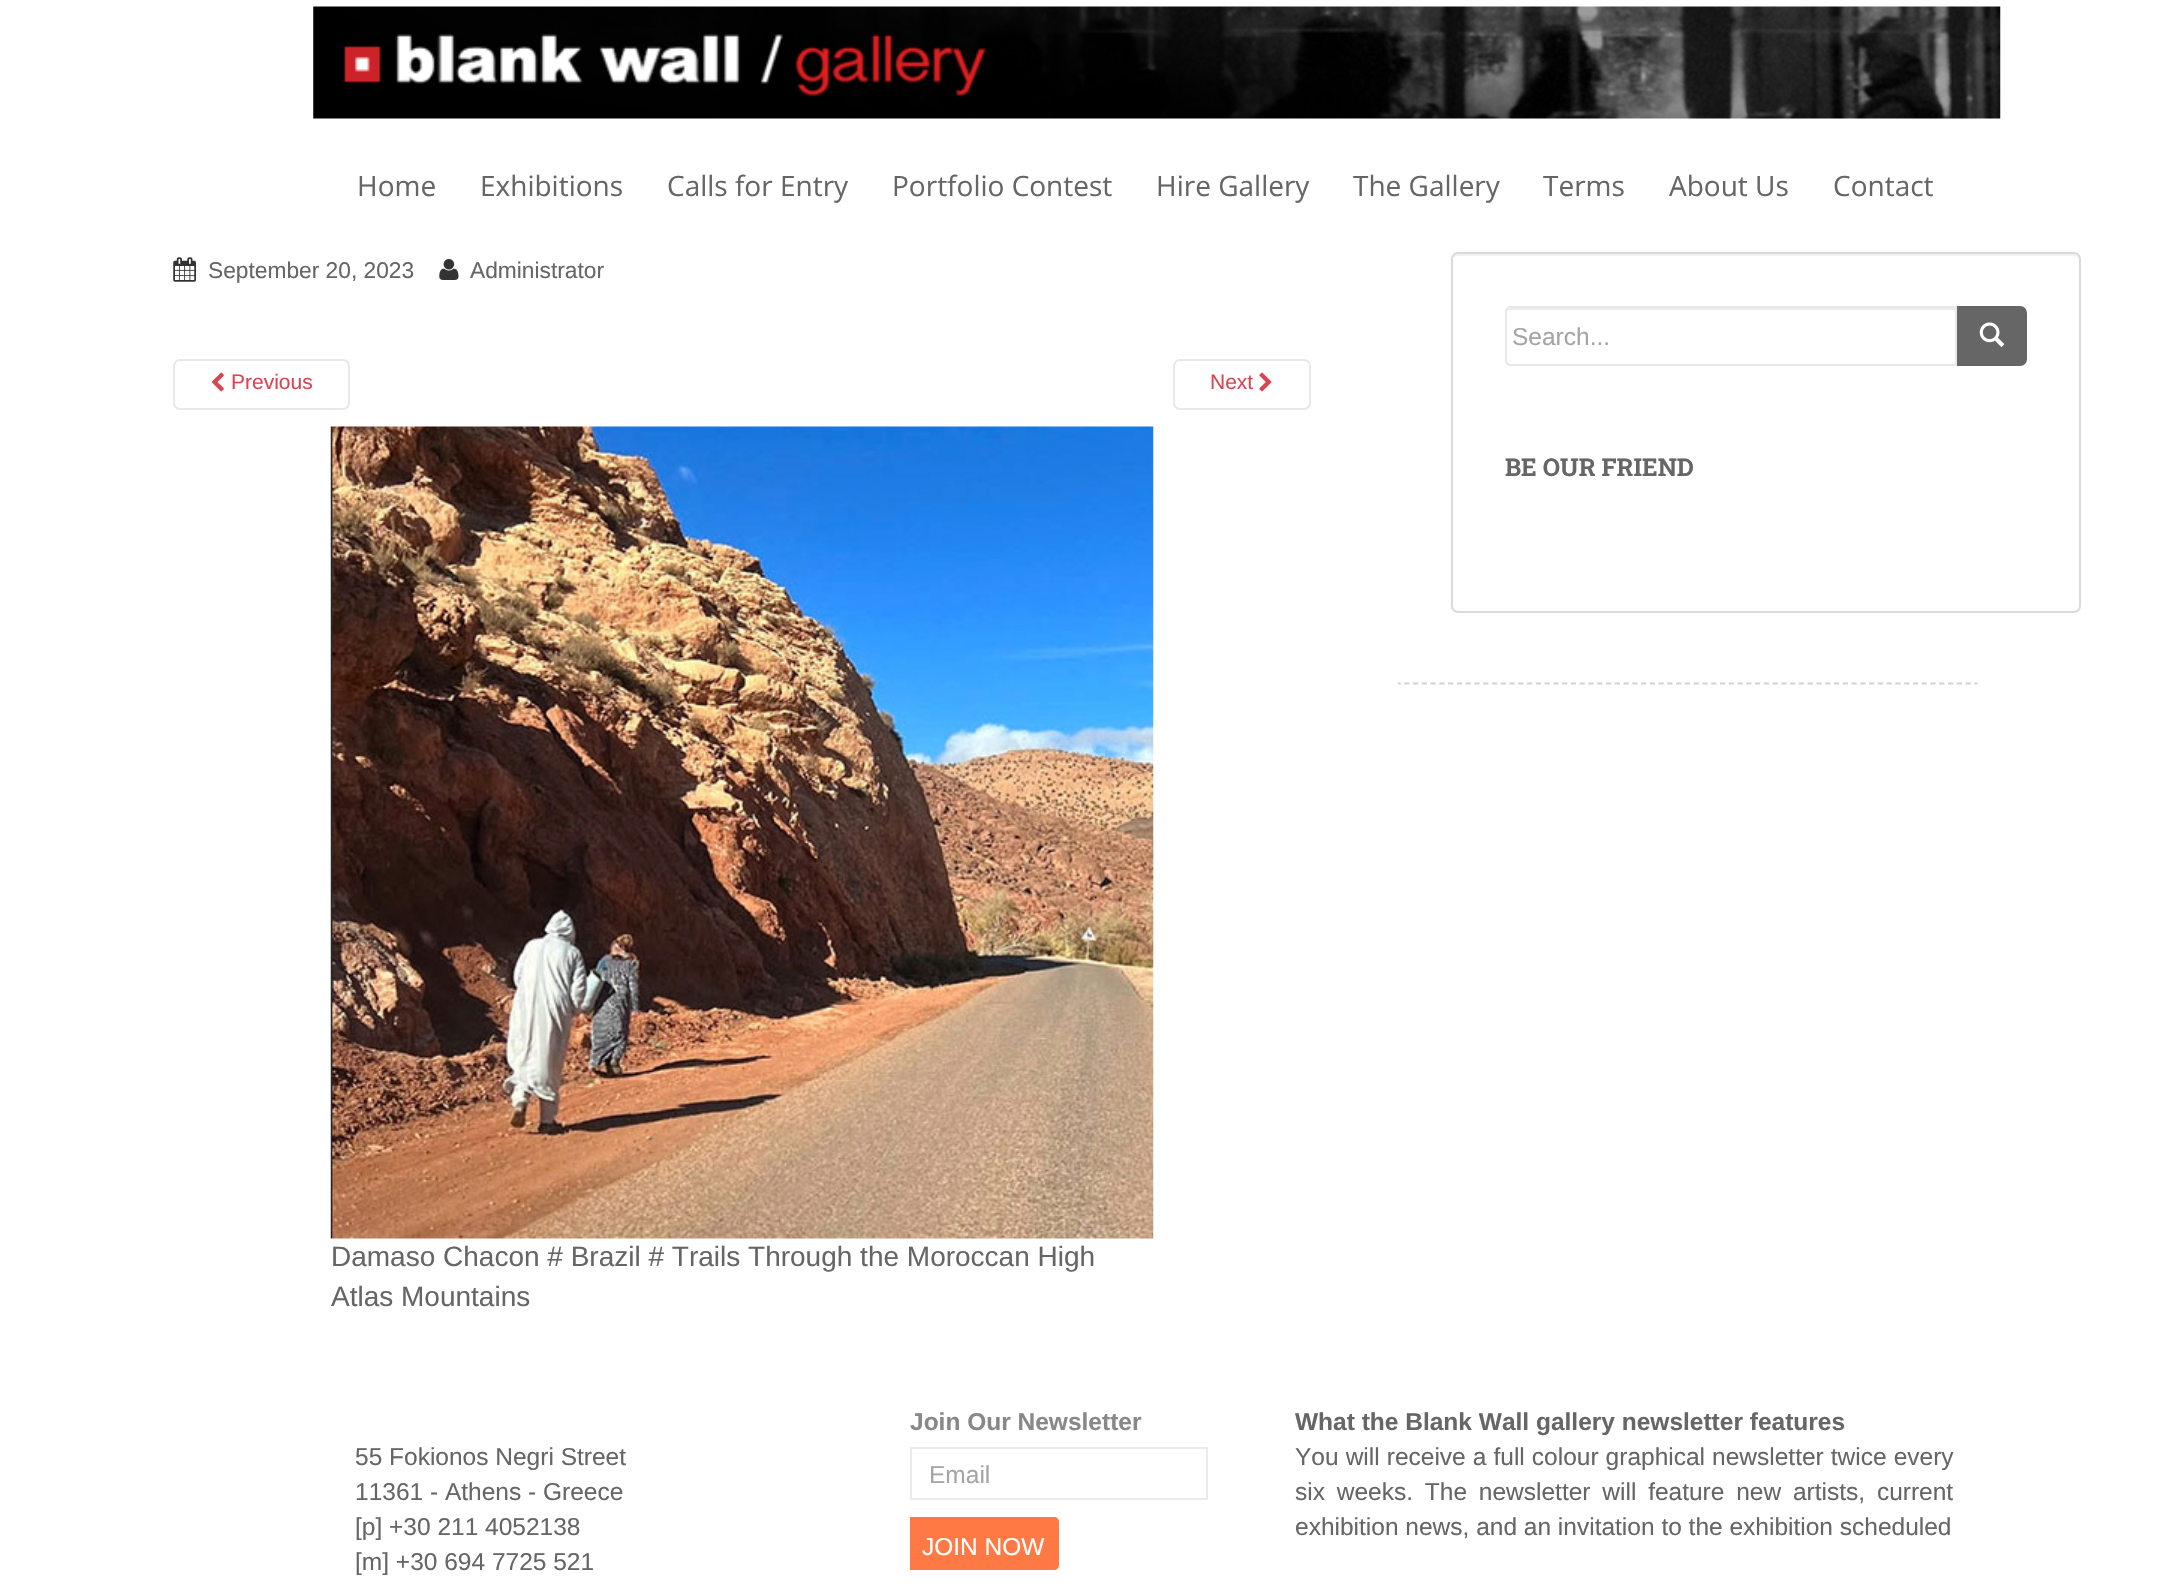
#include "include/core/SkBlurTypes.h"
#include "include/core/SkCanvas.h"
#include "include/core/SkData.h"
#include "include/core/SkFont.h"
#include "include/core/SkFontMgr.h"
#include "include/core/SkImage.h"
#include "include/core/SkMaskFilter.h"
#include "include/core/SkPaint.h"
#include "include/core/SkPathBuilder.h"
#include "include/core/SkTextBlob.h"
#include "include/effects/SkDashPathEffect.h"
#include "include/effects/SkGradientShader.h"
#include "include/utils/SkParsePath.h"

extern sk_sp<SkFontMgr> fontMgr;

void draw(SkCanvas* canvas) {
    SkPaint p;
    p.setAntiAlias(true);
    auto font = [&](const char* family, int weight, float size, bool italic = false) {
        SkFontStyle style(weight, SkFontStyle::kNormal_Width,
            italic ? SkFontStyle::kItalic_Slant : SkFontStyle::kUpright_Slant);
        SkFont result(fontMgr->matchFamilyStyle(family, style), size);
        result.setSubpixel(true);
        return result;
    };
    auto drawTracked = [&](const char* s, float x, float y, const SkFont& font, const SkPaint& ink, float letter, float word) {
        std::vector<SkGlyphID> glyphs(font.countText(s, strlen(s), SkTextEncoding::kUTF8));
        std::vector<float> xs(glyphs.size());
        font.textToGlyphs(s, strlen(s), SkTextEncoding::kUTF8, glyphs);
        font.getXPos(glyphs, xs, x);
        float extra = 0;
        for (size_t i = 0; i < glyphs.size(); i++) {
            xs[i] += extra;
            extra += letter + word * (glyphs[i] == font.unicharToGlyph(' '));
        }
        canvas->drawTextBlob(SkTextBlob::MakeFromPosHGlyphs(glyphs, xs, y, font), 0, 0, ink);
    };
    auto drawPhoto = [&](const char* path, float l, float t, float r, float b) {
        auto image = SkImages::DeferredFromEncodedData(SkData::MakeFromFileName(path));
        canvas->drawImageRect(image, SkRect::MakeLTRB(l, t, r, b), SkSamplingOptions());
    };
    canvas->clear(0xFFFFFFFF);
    drawPhoto("media/1.png", 313, 6, 2001, 119);
    auto font1 = font("Open Sans", 400, 28);
    p.setColor(0xFF666666);
    {
        const struct { const char* s; float x, y; } items[] = {
            {"Home", 357, 196},
            {"Exhibitions", 480, 196},
            {"Calls for Entry", 667, 196},
            {"Portfolio Contest", 892, 196},
            {"Hire Gallery", 1156, 196},
            {"The Gallery", 1353, 196},
            {"Terms", 1543, 196},
            {"About Us", 1669, 196},
            {"Contact", 1833, 196},
        };
        for (auto [s, x, y] : items) {
            canvas->drawString(s, x, y, font1, p);
        }
    }
    p.setStyle(SkPaint::kStroke_Style);
    p.setStrokeWidth(1.8f);
    p.setColor(0xFFD2D2D2);
    p.setPathEffect(SkDashPathEffect::Make({{5.25f, 3.52f}}, 0));
    canvas->drawPath(SkPathBuilder().moveTo(325.5f, 683.5f).lineTo(1977.5f, 683.5f).detach(), p);
    p.setPathEffect(nullptr);
    p.setStyle(SkPaint::kFill_Style);
    p.setColor(0xFFFFFFFF);
    canvas->drawRect(SkRect::MakeLTRB(325, 682, 1398, 685), p);
    drawPhoto("media/2.png", 173, 257, 196, 282);
    auto font2 = font("Liberation Sans", 400, 22.75f);
    p.setColor(0xFF666666);
    canvas->drawString("September 20, 2023", 208, 278, font2, p);
    drawPhoto("media/3.png", 439, 259, 459, 280);
    canvas->drawString("Administrator", 470, 278, font2, p);
    p.setStyle(SkPaint::kStroke_Style);
    p.setStrokeWidth(2);
    p.setColor(0xFFE8E8E8);
    canvas->drawRoundRect(SkRect::MakeLTRB(174, 360, 349, 409), 6, 6, p);
    drawPhoto("media/4.png", 211, 372, 224, 392);
    auto font3 = font("Liberation Sans", 400, 21);
    p.setStyle(SkPaint::kFill_Style);
    p.setColor(0xFFDA4453);
    canvas->drawString("Previous", 231, 389, font3, p);
    p.setStyle(SkPaint::kStroke_Style);
    p.setColor(0xFFE8E8E8);
    canvas->drawRoundRect(SkRect::MakeLTRB(1174, 360, 1310, 409), 6, 6, p);
    p.setStyle(SkPaint::kFill_Style);
    p.setColor(0xFFDA4453);
    canvas->drawString("Next", 1210, 389, font3, p);
    drawPhoto("media/5.png", 1259, 372, 1272, 392);
    drawPhoto("media/6.png", 330, 426, 1154, 1239);
    auto font4 = font("Liberation Sans", 400, 28);
    p.setColor(0xFF666666);
    canvas->drawString("Damaso Chacon # Brazil # Trails Through the Moroccan High", 331, 1266, font4, p);
    canvas->drawString("Atlas Mountains", 331, 1306, font4, p);
    p.setColor(0xFFF2F2F2);
    canvas->drawPath(SkPathBuilder().moveTo(1458, 256).lineTo(2074, 256).cubicTo(2077, 256, 2079, 258, 2079, 261).lineTo(2079, 259).cubicTo(2079, 256, 2077, 254, 2074, 254).lineTo(1458, 254).cubicTo(1456, 254, 1453, 256, 1453, 258).cubicTo(1454, 257, 1456, 256, 1458, 256).close().detach(), p);
    p.setStyle(SkPaint::kStroke_Style);
    p.setColor(0xFFDADADA);
    canvas->drawRoundRect(SkRect::MakeLTRB(1452, 253, 2080, 612), 6, 6, p);
    p.setStyle(SkPaint::kFill_Style);
    p.setColor(0xFFECECEC);
    canvas->drawPath(SkPathBuilder().moveTo(1510, 310).lineTo(1955, 310).lineTo(1955, 308).lineTo(1511, 308).cubicTo(1509, 308, 1507, 310, 1507, 312).lineTo(1507, 313).cubicTo(1507, 311, 1508, 310, 1510, 310).close().detach(), p);
    p.setStyle(SkPaint::kStroke_Style);
    p.setColor(0xFFE8E8E8);
    canvas->drawPath(SkPathBuilder().moveTo(1510, 307).lineTo(1956, 307).lineTo(1956, 365).lineTo(1510, 365).cubicTo(1508, 365, 1506, 363, 1506, 361).lineTo(1506, 311).cubicTo(1506, 309, 1508, 307, 1510, 307).close().detach(), p);
    auto font5 = font("Liberation Sans", 400, 24.5f);
    p.setStyle(SkPaint::kFill_Style);
    p.setColor(0xFFA5A5A5);
    canvas->drawString("Search...", 1512, 345, font5, p);
    p.setColor(0xFF666666);
    canvas->drawPath(SkPathBuilder().moveTo(1958, 307).lineTo(2020, 307).cubicTo(2023.5f, 307, 2026, 309.5f, 2026, 313).lineTo(2026, 359).cubicTo(2026, 362.5f, 2023.5f, 365, 2020, 365).lineTo(1958, 365).close().detach(), p);
    p.setStyle(SkPaint::kStroke_Style);
    canvas->drawPath(SkPathBuilder().moveTo(1958, 307).lineTo(2020, 307).cubicTo(2023.5f, 307, 2026, 309.5f, 2026, 313).lineTo(2026, 359).cubicTo(2026, 362.5f, 2023.5f, 365, 2020, 365).lineTo(1958, 365).close().detach(), p);
    drawPhoto("media/7.png", 1979, 322, 2005, 347);
    auto font6 = font("Roboto Slab", 700, 24.5f);
    p.setStyle(SkPaint::kFill_Style);
    canvas->drawString("BE OUR FRIEND", 1505, 476, font6, p);
    {
        const struct { const char* s; float x, y; } items[] = {
            {"55 Fokionos Negri Street", 355, 1465},
            {"11361 - Athens - Greece", 355, 1500},
            {"[p] +30 211 4052138", 355, 1535},
            {"[m] +30 694 7725 521", 355, 1570},
        };
        for (auto [s, x, y] : items) {
            canvas->drawString(s, x, y, font5, p);
        }
    }
    auto font7 = font("Liberation Sans", 700, 24.5f);
    p.setColor(0xFF888888);
    canvas->drawString("Join Our Newsletter", 910, 1430, font7, p);
    p.setStyle(SkPaint::kStroke_Style);
    p.setColor(0xFFEBEBEB);
    canvas->drawRect(SkRect::MakeLTRB(911, 1448, 1207, 1499), p);
    p.setStyle(SkPaint::kFill_Style);
    p.setColor(0xFFA5A5A5);
    canvas->drawString("Email", 929, 1483, font5, p);
    p.setColor(0xFFFF7944);
    canvas->drawPath(SkPathBuilder().moveTo(910, 1517).lineTo(1054, 1517).cubicTo(1057, 1517, 1059, 1519, 1059, 1522).lineTo(1059, 1565).cubicTo(1059, 1568, 1057, 1570, 1054, 1570).lineTo(910, 1570).close().detach(), p);
    p.setColor(0xFFFFFFFF);
    canvas->drawString("JOIN NOW", 922, 1555, font5, p);
    p.setColor(0xFF666666);
    canvas->drawString("What the Blank Wall gallery newsletter features", 1295, 1430, font7, p);
    drawTracked("You will receive a full colour graphical newsletter twice every", 1295, 1465, font5, p, 0, 0.25f);
    drawTracked("six weeks. The newsletter will feature new artists, current", 1295, 1500, font5, p, 0, 5);
    canvas->drawString("exhibition news, and an invitation to the exhibition scheduled", 1295, 1535, font5, p);
}
